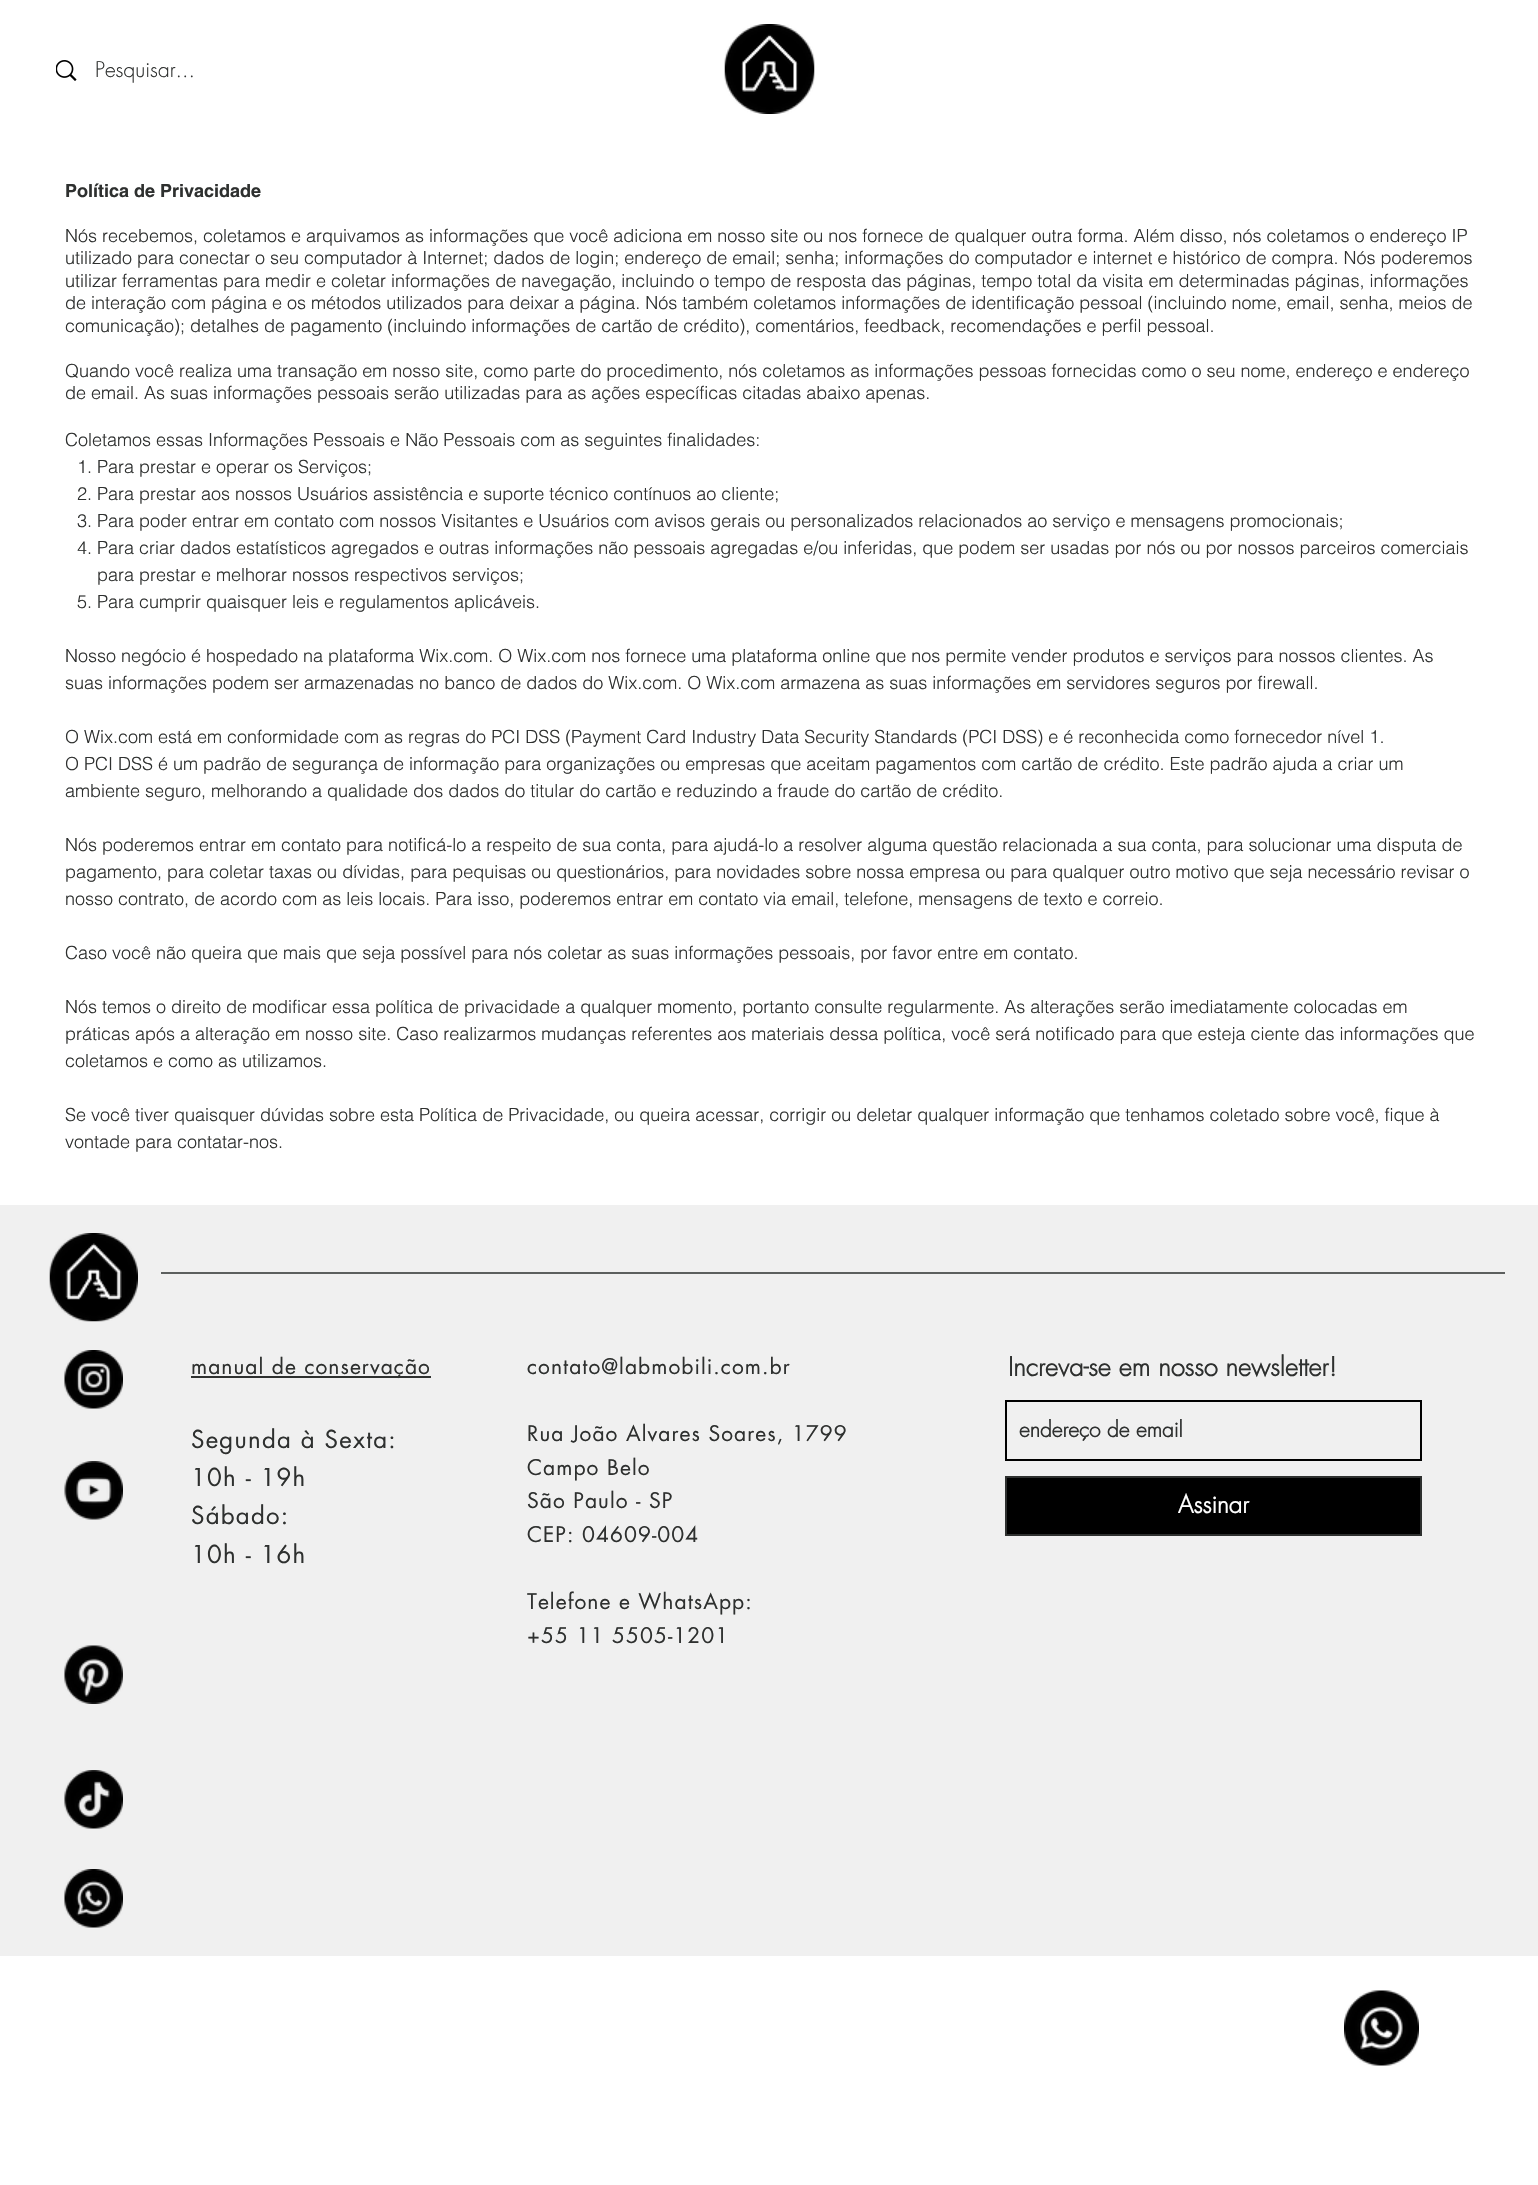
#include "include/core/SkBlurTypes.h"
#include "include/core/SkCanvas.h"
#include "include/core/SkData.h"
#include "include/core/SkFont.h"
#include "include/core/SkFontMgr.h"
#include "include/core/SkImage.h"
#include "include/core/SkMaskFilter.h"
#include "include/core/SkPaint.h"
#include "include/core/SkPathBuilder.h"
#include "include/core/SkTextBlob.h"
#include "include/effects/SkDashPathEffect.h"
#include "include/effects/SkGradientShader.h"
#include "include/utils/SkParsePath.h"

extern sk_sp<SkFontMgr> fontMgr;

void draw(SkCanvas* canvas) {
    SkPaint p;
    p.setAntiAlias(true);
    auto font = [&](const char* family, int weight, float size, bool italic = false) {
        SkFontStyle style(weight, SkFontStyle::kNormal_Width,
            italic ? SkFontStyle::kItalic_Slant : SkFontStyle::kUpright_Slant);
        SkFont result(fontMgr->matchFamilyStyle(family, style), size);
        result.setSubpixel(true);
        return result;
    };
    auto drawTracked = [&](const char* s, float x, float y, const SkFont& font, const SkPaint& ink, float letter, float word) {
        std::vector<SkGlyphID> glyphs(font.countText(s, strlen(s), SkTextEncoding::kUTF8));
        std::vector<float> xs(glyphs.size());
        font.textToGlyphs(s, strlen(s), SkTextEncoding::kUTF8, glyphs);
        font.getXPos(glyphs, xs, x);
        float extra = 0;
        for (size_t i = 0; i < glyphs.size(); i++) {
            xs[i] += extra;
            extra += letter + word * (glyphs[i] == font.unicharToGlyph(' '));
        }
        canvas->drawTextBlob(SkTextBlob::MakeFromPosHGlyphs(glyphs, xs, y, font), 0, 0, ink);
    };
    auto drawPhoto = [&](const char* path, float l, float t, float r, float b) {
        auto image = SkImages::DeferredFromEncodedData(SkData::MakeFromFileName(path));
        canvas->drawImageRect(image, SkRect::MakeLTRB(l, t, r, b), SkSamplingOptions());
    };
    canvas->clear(0xFFFFFFFF);
    drawPhoto("media/1.png", 56, 60, 77, 81);
    auto font1 = font("futura", 300, 21);
    p.setColor(0xFF2E302F);
    canvas->drawString("Pesquisar...", 95, 77, font1, p);
    drawPhoto("media/2.png", 724, 24, 815, 114);
    auto font2 = font("helvetica", 700, 18);
    canvas->drawString("Política de Privacidade", 65, 197, font2, p);
    auto font3 = font("helvetica", 300, 18);
    {
        const struct { const char* s; float x, y; } items[] = {
            {"Nós recebemos, coletamos e arquivamos as informações que você adiciona em nosso site ou nos fornece de qualquer outra forma. Além disso, nós coletamos o endereço IP", 65, 242},
            {"utilizado para conectar o seu computador à Internet; dados de login; endereço de email; senha; informações do computador e internet e histórico de compra. Nós poderemos", 65, 264},
            {"utilizar ferramentas para medir e coletar informações de navegação, incluindo o tempo de resposta das páginas, tempo total da visita em determinadas páginas, informações", 65, 287},
            {"de interação com página e os métodos utilizados para deixar a página. Nós também coletamos informações de identificação pessoal (incluindo nome, email, senha, meios de", 65, 309},
            {"comunicação); detalhes de pagamento (incluindo informações de cartão de crédito), comentários, feedback, recomendações e perfil pessoal.", 65, 332},
            {"Quando você realiza uma transação em nosso site, como parte do procedimento, nós coletamos as informações pessoas fornecidas como o seu nome, endereço e endereço", 65, 377},
            {"de email. As suas informações pessoais serão utilizadas para as ações específicas citadas abaixo apenas.", 65, 399},
            {"Coletamos essas Informações Pessoais e Não Pessoais com as seguintes finalidades:", 65, 446},
            {"1. Para prestar e operar os Serviços;", 77, 473},
            {"2. Para prestar aos nossos Usuários assistência e suporte técnico contínuos ao cliente;", 77, 500},
            {"3. Para poder entrar em contato com nossos Visitantes e Usuários com avisos gerais ou personalizados relacionados ao serviço e mensagens promocionais;", 77, 527},
            {"4. Para criar dados estatísticos agregados e outras informações não pessoais agregadas e/ou inferidas, que podem ser usadas por nós ou por nossos parceiros comerciais", 77, 554},
            {"para prestar e melhorar nossos respectivos serviços;", 97, 581},
            {"5. Para cumprir quaisquer leis e regulamentos aplicáveis.", 77, 608},
            {"Nosso negócio é hospedado na plataforma Wix.com. O Wix.com nos fornece uma plataforma online que nos permite vender produtos e serviços para nossos clientes. As", 65, 662},
            {"suas informações podem ser armazenadas no banco de dados do Wix.com. O Wix.com armazena as suas informações em servidores seguros por firewall.", 65, 689},
            {"O Wix.com está em conformidade com as regras do PCI DSS (Payment Card Industry Data Security Standards (PCI DSS) e é reconhecida como fornecedor nível 1.", 65, 743},
            {"O PCI DSS é um padrão de segurança de informação para organizações ou empresas que aceitam pagamentos com cartão de crédito. Este padrão ajuda a criar um", 65, 770},
            {"ambiente seguro, melhorando a qualidade dos dados do titular do cartão e reduzindo a fraude do cartão de crédito.", 65, 797},
            {"Nós poderemos entrar em contato para notificá-lo a respeito de sua conta, para ajudá-lo a resolver alguma questão relacionada a sua conta, para solucionar uma disputa de", 65, 851},
            {"pagamento, para coletar taxas ou dívidas, para pequisas ou questionários, para novidades sobre nossa empresa ou para qualquer outro motivo que seja necessário revisar o", 65, 878},
            {"nosso contrato, de acordo com as leis locais. Para isso, poderemos entrar em contato via email, telefone, mensagens de texto e correio.", 65, 905},
            {"Caso você não queira que mais que seja possível para nós coletar as suas informações pessoais, por favor entre em contato.", 65, 959},
            {"Nós temos o direito de modificar essa política de privacidade a qualquer momento, portanto consulte regularmente. As alterações serão imediatamente colocadas em", 65, 1013},
            {"práticas após a alteração em nosso site. Caso realizarmos mudanças referentes aos materiais dessa política, você será notificado para que esteja ciente das informações que", 65, 1040},
            {"coletamos e como as utilizamos.", 65, 1067},
            {"Se você tiver quaisquer dúvidas sobre esta Política de Privacidade, ou queira acessar, corrigir ou deletar qualquer informação que tenhamos coletado sobre você, fique à", 65, 1121},
            {"vontade para contatar-nos.", 65, 1148},
        };
        for (auto [s, x, y] : items) {
            canvas->drawString(s, x, y, font3, p);
        }
    }
    p.setColor(0xFFF0F0F0);
    canvas->drawRect(SkRect::MakeLTRB(0, 1205, 1538, 1956), p);
    drawPhoto("media/3.png", 49, 1233, 138, 1322);
    p.setColor(0xFF5C5F5E);
    canvas->drawRect(SkRect::MakeLTRB(161, 1272, 1505, 1274), p);
    drawPhoto("media/4.png", 64, 1350, 123, 1409);
    p.setColor(0xFF2E302F);
    canvas->drawRect(SkRect::MakeLTRB(191, 1376, 431, 1378), p);
    auto font4 = font("futura", 400, 21);
    {
        const struct { const char* s; float x, y; } items[] = {
            {"manual de conservação", 191, 1374},
            {"contato@labmobili.com.br", 527, 1374},
            {"Rua João Alvares Soares, 1799", 527, 1441},
            {"Campo Belo", 527, 1475},
            {"São Paulo - SP", 527, 1508},
            {"CEP: 04609-004", 527, 1542},
            {"Telefone e WhatsApp:", 527, 1609},
            {"+55 11 5505-1201", 527, 1643},
        };
        for (auto [s, x, y] : items) {
            drawTracked(s, x, y, font4, p, 1.05f, 0);
        }
    }
    auto font5 = font("futura", 700, 25.5f);
    canvas->drawString("Increva-se em nosso newsletter!", 1008, 1376, font5, p);
    p.setStyle(SkPaint::kStroke_Style);
    p.setStrokeWidth(2);
    p.setColor(0xFF000000);
    canvas->drawRect(SkRect::MakeLTRB(1006, 1401, 1421, 1460), p);
    auto font6 = font("futura", 700, 21);
    p.setStyle(SkPaint::kFill_Style);
    p.setColor(0xFF2E302F);
    canvas->drawString("endereço de email", 1019, 1437, font6, p);
    p.setColor(0xFF000000);
    canvas->drawRect(SkRect::MakeLTRB(1006, 1477, 1421, 1535), p);
    p.setStyle(SkPaint::kStroke_Style);
    p.setColor(0xFF2E302F);
    canvas->drawRect(SkRect::MakeLTRB(1006, 1477, 1421, 1535), p);
    auto font7 = font("futura", 700, 24);
    p.setStyle(SkPaint::kFill_Style);
    p.setColor(0xFFFFFFFF);
    canvas->drawString("Assinar", 1178, 1513, font7, p);
    drawPhoto("media/5.png", 64, 1461, 123, 1520);
    auto font8 = font("futura", 400, 24);
    p.setColor(0xFF2E302F);
    {
        const struct { const char* s; float x, y; } items[] = {
            {"Segunda à Sexta:", 191, 1448},
            {"10h - 19h", 191, 1486},
            {"Sábado:", 191, 1524},
            {"10h - 16h", 191, 1563},
        };
        for (auto [s, x, y] : items) {
            drawTracked(s, x, y, font8, p, 1.25f, 0);
        }
    }
    drawPhoto("media/6.png", 64, 1645, 123, 1704);
    drawPhoto("media/7.png", 64, 1770, 123, 1829);
    drawPhoto("media/8.png", 64, 1869, 123, 1928);
    drawPhoto("media/9.png", 1344, 1990, 1419, 2066);
}
